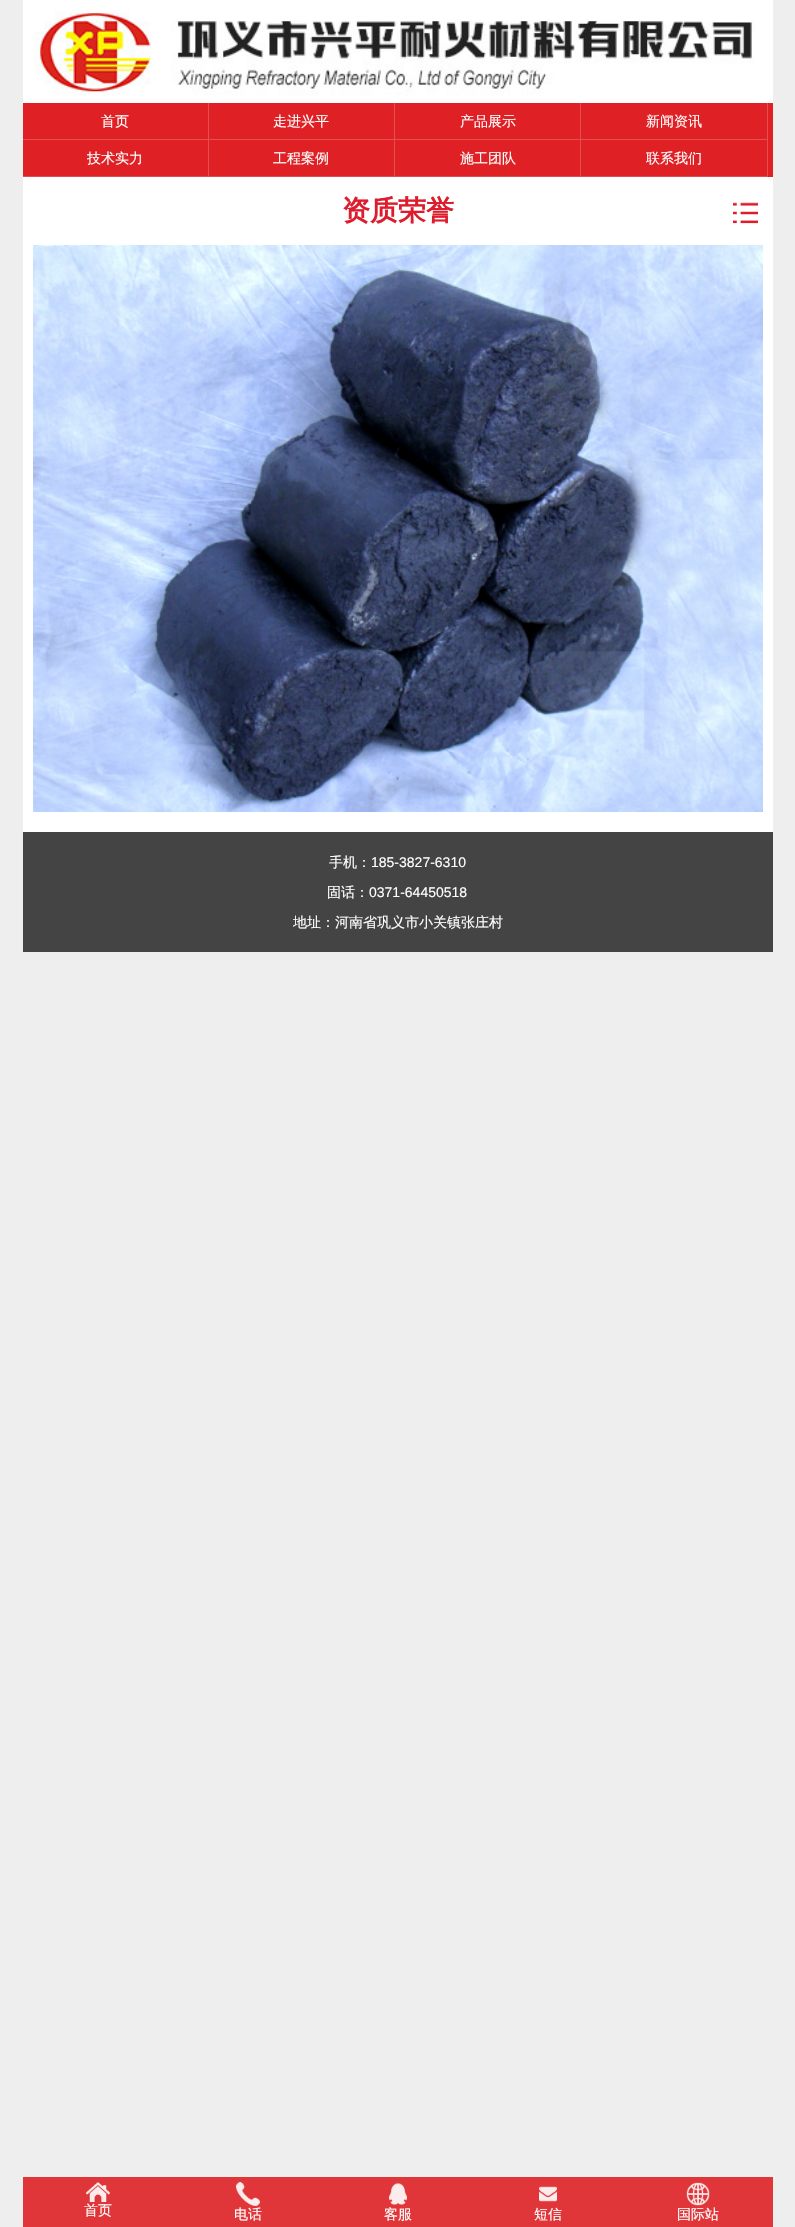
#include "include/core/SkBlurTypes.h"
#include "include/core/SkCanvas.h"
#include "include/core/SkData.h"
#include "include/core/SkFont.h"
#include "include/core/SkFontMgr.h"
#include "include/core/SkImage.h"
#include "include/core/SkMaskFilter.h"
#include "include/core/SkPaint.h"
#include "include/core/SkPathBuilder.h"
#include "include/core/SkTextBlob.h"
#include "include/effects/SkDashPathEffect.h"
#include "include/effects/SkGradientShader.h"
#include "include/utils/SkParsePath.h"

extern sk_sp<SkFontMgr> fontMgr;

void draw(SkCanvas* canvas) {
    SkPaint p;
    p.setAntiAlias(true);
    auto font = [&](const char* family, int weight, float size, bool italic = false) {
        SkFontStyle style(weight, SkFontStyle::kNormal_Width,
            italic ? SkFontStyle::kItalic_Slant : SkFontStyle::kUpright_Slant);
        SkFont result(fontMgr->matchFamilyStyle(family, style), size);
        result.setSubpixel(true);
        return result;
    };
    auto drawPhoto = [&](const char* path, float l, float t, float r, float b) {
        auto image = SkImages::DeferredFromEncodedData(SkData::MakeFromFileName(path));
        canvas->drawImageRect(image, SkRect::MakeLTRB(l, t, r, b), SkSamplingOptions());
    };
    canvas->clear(0xFFEEEEEE);
    drawPhoto("media/1.png", 23, 0, 773, 103);
    p.setColor(0xFFDF2125);
    canvas->drawRect(SkRect::MakeLTRB(23, 103, 773, 177), p);
    p.setColor(0xFFE54D51);
    canvas->drawPath(SkPathBuilder().moveTo(209, 103).lineTo(209, 140).lineTo(208, 139).lineTo(208, 103).close().detach(), p);
    p.setColor(0x33FFFFFF);
    canvas->drawPath(SkPathBuilder().moveTo(209, 140).lineTo(23, 140).lineTo(23, 139).lineTo(208, 139).close().detach(), p);
    auto font1 = font("WenQuanYi Zen Hei", 500, 14);
    p.setColor(0xFFFFFFFF);
    canvas->drawString("首页", 101, 126, font1, p);
    p.setColor(0xFFE54D51);
    canvas->drawPath(SkPathBuilder().moveTo(395, 103).lineTo(395, 140).lineTo(394, 139).lineTo(394, 103).close().detach(), p);
    p.setColor(0x33FFFFFF);
    canvas->drawPath(SkPathBuilder().moveTo(395, 140).lineTo(209, 140).lineTo(209, 139).lineTo(394, 139).close().detach(), p);
    p.setColor(0xFFFFFFFF);
    canvas->drawString("走进兴平", 273, 126, font1, p);
    p.setColor(0xFFE54D51);
    canvas->drawPath(SkPathBuilder().moveTo(581, 103).lineTo(581, 140).lineTo(580, 139).lineTo(580, 103).close().detach(), p);
    p.setColor(0x33FFFFFF);
    canvas->drawPath(SkPathBuilder().moveTo(581, 140).lineTo(395, 140).lineTo(395, 139).lineTo(580, 139).close().detach(), p);
    p.setColor(0xFFFFFFFF);
    canvas->drawString("产品展示", 460, 126, font1, p);
    p.setColor(0xFFE54D51);
    canvas->drawPath(SkPathBuilder().moveTo(768, 103).lineTo(768, 140).lineTo(767, 139).lineTo(767, 103).close().detach(), p);
    p.setColor(0x33FFFFFF);
    canvas->drawPath(SkPathBuilder().moveTo(768, 140).lineTo(581, 140).lineTo(581, 139).lineTo(767, 139).close().detach(), p);
    p.setColor(0xFFFFFFFF);
    canvas->drawString("新闻资讯", 646, 126, font1, p);
    p.setColor(0xFFE54D51);
    canvas->drawPath(SkPathBuilder().moveTo(209, 140).lineTo(209, 177).lineTo(208, 176).lineTo(208, 140).close().detach(), p);
    p.setColor(0x33FFFFFF);
    canvas->drawPath(SkPathBuilder().moveTo(209, 177).lineTo(23, 177).lineTo(23, 176).lineTo(208, 176).close().detach(), p);
    p.setColor(0xFFFFFFFF);
    canvas->drawString("技术实力", 87, 163, font1, p);
    p.setColor(0xFFE54D51);
    canvas->drawPath(SkPathBuilder().moveTo(395, 140).lineTo(395, 177).lineTo(394, 176).lineTo(394, 140).close().detach(), p);
    p.setColor(0x33FFFFFF);
    canvas->drawPath(SkPathBuilder().moveTo(395, 177).lineTo(209, 177).lineTo(209, 176).lineTo(394, 176).close().detach(), p);
    p.setColor(0xFFFFFFFF);
    canvas->drawString("工程案例", 273, 163, font1, p);
    p.setColor(0xFFE54D51);
    canvas->drawPath(SkPathBuilder().moveTo(581, 140).lineTo(581, 177).lineTo(580, 176).lineTo(580, 140).close().detach(), p);
    p.setColor(0x33FFFFFF);
    canvas->drawPath(SkPathBuilder().moveTo(581, 177).lineTo(395, 177).lineTo(395, 176).lineTo(580, 176).close().detach(), p);
    p.setColor(0xFFFFFFFF);
    canvas->drawString("施工团队", 460, 163, font1, p);
    p.setColor(0xFFE54D51);
    canvas->drawPath(SkPathBuilder().moveTo(768, 140).lineTo(768, 177).lineTo(767, 176).lineTo(767, 140).close().detach(), p);
    p.setColor(0x33FFFFFF);
    canvas->drawPath(SkPathBuilder().moveTo(768, 177).lineTo(581, 177).lineTo(581, 176).lineTo(767, 176).close().detach(), p);
    p.setColor(0xFFFFFFFF);
    canvas->drawString("联系我们", 646, 163, font1, p);
    canvas->drawRect(SkRect::MakeLTRB(23, 177, 773, 832), p);
    auto font2 = font("WenQuanYi Zen Hei", 700, 28);
    p.setColor(0xFFDD1D2D);
    canvas->drawString("资质荣誉", 342, 220, font2, p);
    drawPhoto("media/2.png", 733, 202, 758, 224);
    drawPhoto("media/3.png", 33, 245, 763, 812);
    p.setColor(0xFF444444);
    canvas->drawRect(SkRect::MakeLTRB(23, 832, 773, 952), p);
    p.setColor(0xFFFFFFFF);
    canvas->drawString("手机：", 329, 867, font1, p);
    auto font3 = font("Liberation Sans", 400, 14);
    canvas->drawString("185-3827-6310", 371, 867, font3, p);
    canvas->drawString("固话：", 327, 897, font1, p);
    canvas->drawString("0371-64450518", 369, 897, font3, p);
    canvas->drawString("地址：河南省巩义市小关镇张庄村", 293, 927, font1, p);
    p.setColor(0xFFE13639);
    canvas->drawRect(SkRect::MakeLTRB(23, 2177, 773, 2227), p);
    drawPhoto("media/4.png", 86, 2182, 110, 2202);
    p.setColor(0xFFFFFFFF);
    canvas->drawString("首页", 84, 2215, font1, p);
    drawPhoto("media/5.png", 236, 2182, 260, 2206);
    canvas->drawString("电话", 234, 2219, font1, p);
    drawPhoto("media/6.png", 389, 2183, 407, 2205);
    canvas->drawString("客服", 384, 2219, font1, p);
    drawPhoto("media/7.png", 539, 2186, 557, 2202);
    canvas->drawString("短信", 534, 2219, font1, p);
    drawPhoto("media/8.png", 686, 2182, 710, 2206);
    canvas->drawString("国际站", 677, 2219, font1, p);
}
